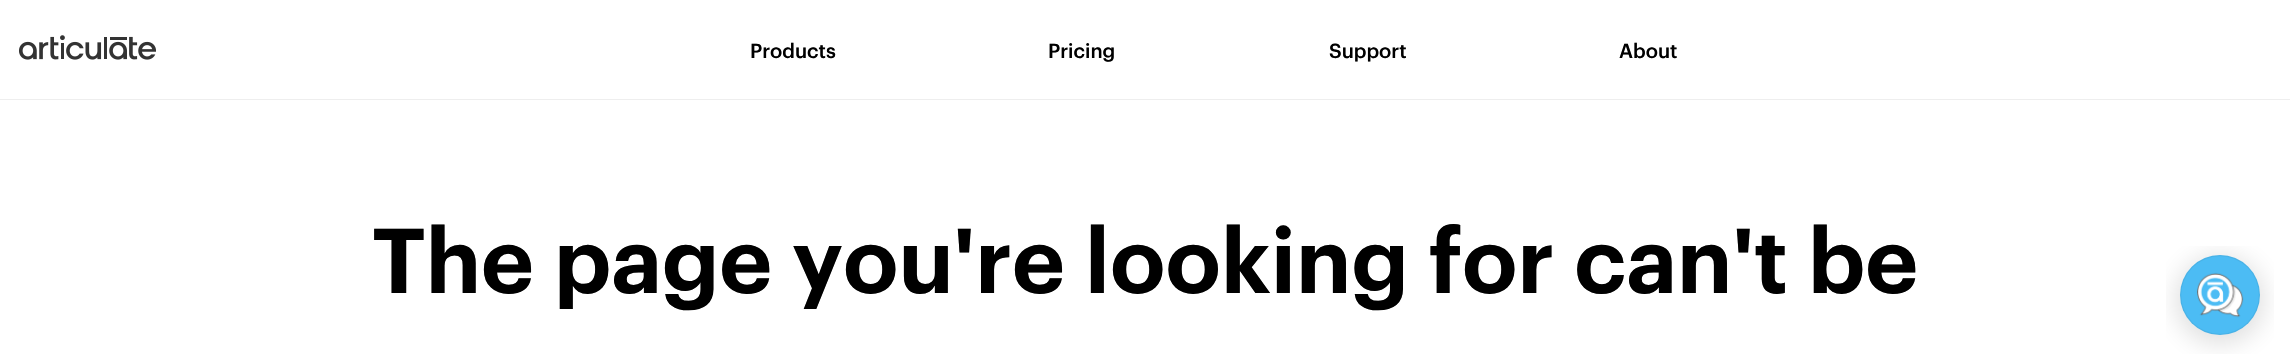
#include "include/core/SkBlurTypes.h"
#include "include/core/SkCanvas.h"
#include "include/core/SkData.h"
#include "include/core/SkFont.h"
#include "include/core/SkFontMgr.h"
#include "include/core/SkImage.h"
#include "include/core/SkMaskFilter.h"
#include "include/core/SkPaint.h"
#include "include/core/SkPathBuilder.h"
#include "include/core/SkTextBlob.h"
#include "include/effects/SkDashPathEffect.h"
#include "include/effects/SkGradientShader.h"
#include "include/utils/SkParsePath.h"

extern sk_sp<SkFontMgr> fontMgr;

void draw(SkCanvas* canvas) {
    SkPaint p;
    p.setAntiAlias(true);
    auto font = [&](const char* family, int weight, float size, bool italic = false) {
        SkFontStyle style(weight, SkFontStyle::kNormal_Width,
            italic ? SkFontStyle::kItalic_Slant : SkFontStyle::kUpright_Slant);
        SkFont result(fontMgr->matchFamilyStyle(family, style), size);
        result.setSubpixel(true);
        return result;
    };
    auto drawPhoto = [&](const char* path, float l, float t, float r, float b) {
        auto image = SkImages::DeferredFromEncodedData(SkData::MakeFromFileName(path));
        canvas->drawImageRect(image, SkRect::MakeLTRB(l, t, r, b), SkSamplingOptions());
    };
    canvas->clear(0xFFFFFFFF);
    p.setColor(0xFFEEEEEE);
    canvas->drawRect(SkRect::MakeLTRB(0, 99, 2290, 100), p);
    drawPhoto("media/1.png", 19, 35, 156, 60);
    auto font1 = font("Graphik", 500, 20);
    p.setColor(0xFF000000);
    {
        const struct { const char* s; float x, y; } items[] = {
            {"Products", 750, 58},
            {"Pricing", 1048, 58},
            {"Support", 1329, 58},
            {"About", 1619, 58},
        };
        for (auto [s, x, y] : items) {
            canvas->drawString(s, x, y, font1, p);
        }
    }
    auto font2 = font("Graphik", 600, 90);
    canvas->drawString("The page you're looking for can't be", 372, 293, font2, p);
    drawPhoto("media/2.png", 2166, 246, 2274, 354);
}
